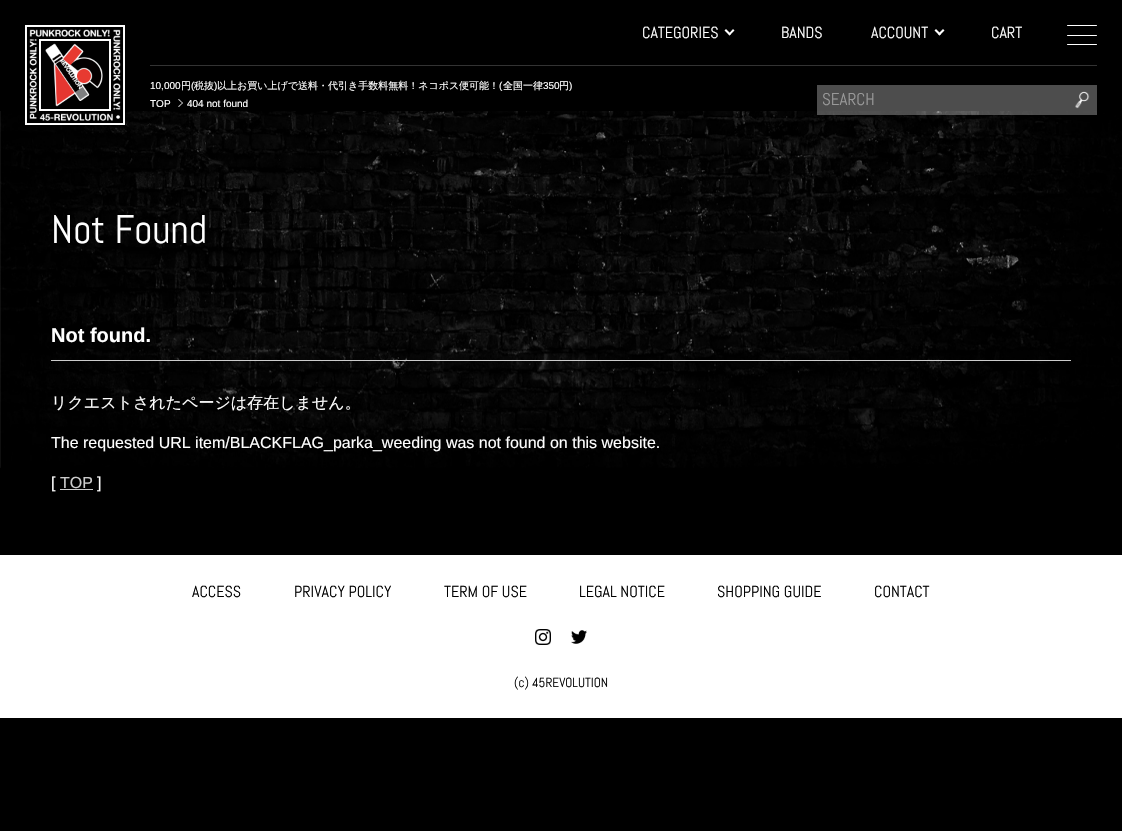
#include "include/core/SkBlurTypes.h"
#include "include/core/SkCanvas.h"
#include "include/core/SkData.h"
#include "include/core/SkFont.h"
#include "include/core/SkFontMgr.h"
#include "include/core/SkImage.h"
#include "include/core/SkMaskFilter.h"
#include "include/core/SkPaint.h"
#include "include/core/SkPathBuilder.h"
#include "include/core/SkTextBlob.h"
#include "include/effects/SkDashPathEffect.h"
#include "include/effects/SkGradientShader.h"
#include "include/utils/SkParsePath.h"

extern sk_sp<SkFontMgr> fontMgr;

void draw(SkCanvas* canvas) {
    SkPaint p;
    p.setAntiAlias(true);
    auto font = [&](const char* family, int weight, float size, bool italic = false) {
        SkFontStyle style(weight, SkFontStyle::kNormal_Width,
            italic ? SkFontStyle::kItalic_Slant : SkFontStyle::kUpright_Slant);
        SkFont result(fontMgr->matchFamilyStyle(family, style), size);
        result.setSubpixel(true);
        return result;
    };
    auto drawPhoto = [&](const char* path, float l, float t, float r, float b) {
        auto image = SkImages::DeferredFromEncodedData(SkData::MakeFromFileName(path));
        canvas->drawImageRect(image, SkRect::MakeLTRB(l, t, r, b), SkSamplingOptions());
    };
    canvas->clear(0xFF000000);
    drawPhoto("media/1.png", 0, 111, 1122, 468);
    drawPhoto("media/2.png", 25, 25, 125, 125);
    auto font1 = font("Abel", 400, 16);
    p.setColor(0xFFFFFFFF);
    canvas->drawString("CATEGORIES", 642, 38, font1, p);
    canvas->drawPath(SkPathBuilder().moveTo(733, 29).lineTo(734.5f, 30.5f).lineTo(729.5f, 35.5f).lineTo(728.5f, 34).close().detach(), p);
    canvas->drawPath(SkPathBuilder().moveTo(726, 29).lineTo(731, 34).lineTo(729.5f, 35.5f).lineTo(724.5f, 30.5f).close().detach(), p);
    canvas->drawString("BANDS", 781, 38, font1, p);
    canvas->drawString("ACCOUNT", 871, 38, font1, p);
    canvas->drawPath(SkPathBuilder().moveTo(943, 29).lineTo(944.5f, 30.5f).lineTo(939.5f, 35.5f).lineTo(938, 34).close().detach(), p);
    canvas->drawPath(SkPathBuilder().moveTo(936, 29).lineTo(941, 34).lineTo(939.5f, 35.5f).lineTo(934.5f, 30.5f).close().detach(), p);
    canvas->drawString("CART", 991, 38, font1, p);
    canvas->drawRoundRect(SkRect::MakeLTRB(1067, 25, 1097, 26), 0.5f, 0.5f, p);
    canvas->drawRoundRect(SkRect::MakeLTRB(1067, 35, 1097, 36), 0.5f, 0.5f, p);
    canvas->drawRoundRect(SkRect::MakeLTRB(1067, 44, 1097, 45), 0.5f, 0.5f, p);
    p.setColor(0xFF333333);
    canvas->drawRect(SkRect::MakeLTRB(150, 65, 1097, 66), p);
    auto font2 = font("Liberation Sans", 400, 10);
    p.setColor(0xFFFFFFFF);
    canvas->drawString("10,000", 150, 89, font2, p);
    auto font3 = font("WenQuanYi Zen Hei", 500, 10);
    canvas->drawString("円", 181, 89, font3, p);
    canvas->drawString("(", 191, 89, font2, p);
    canvas->drawString("税抜", 194, 89, font3, p);
    canvas->drawString(")", 214, 89, font2, p);
    canvas->drawString("以上お買い上げで送料・代引き手数料無料！ネコポス便可能！", 217, 89, font3, p);
    canvas->drawString("(", 499, 89, font2, p);
    canvas->drawString("全国一律", 503, 89, font3, p);
    canvas->drawString("350", 543, 89, font2, p);
    canvas->drawString("円", 559, 89, font3, p);
    canvas->drawString(")", 569, 89, font2, p);
    canvas->drawString("TOP", 150, 107, font2, p);
    p.setColor(0xFFCCCCCC);
    canvas->drawPath(SkPathBuilder().moveTo(179, 99).lineTo(183, 103).lineTo(182.5f, 103.5f).lineTo(178, 99.5f).close().detach(), p);
    canvas->drawPath(SkPathBuilder().moveTo(182.5f, 102.5f).lineTo(183, 103).lineTo(179, 107).lineTo(178, 106.5f).close().detach(), p);
    p.setColor(0xFFFFFFFF);
    canvas->drawString("404 not found", 187, 107, font2, p);
    p.setColor(0x4DFFFFFF);
    canvas->drawRect(SkRect::MakeLTRB(817, 85, 1097, 115), p);
    drawPhoto("media/3.png", 1075, 91, 1090, 109);
    auto font4 = font("Abel", 400, 17);
    p.setColor(0xFF999999);
    canvas->drawString("SEARCH", 822, 105, font4, p);
    auto font5 = font("Abel", 400, 40);
    p.setColor(0xFFFFFFFF);
    canvas->drawString("Not Found", 51, 243, font5, p);
    p.setColor(0xFFCCCCCC);
    canvas->drawRect(SkRect::MakeLTRB(51, 360, 1071, 361), p);
    auto font6 = font("Liberation Sans", 700, 20);
    p.setColor(0xFFFFFFFF);
    canvas->drawString("Not found.", 51, 342, font6, p);
    auto font7 = font("WenQuanYi Zen Hei", 500, 16);
    canvas->drawString("リクエストされたページは存在しません。", 51, 408, font7, p);
    auto font8 = font("Liberation Sans", 400, 16);
    canvas->drawString("The requested URL item/BLACKFLAG_parka_weeding was not found on this website.", 51, 448, font8, p);
    canvas->drawString("[", 51, 488, font8, p);
    p.setColor(0xFFCCCCCC);
    canvas->drawString("TOP", 60, 488, font8, p);
    canvas->drawRect(SkRect::MakeLTRB(60, 489, 93, 490), p);
    p.setColor(0xFFFFFFFF);
    canvas->drawString("]", 97, 488, font8, p);
    canvas->drawRect(SkRect::MakeLTRB(0, 555, 1122, 718), p);
    p.setColor(0xFF000000);
    {
        const struct { const char* s; float x, y; } items[] = {
            {"ACCESS", 192, 597},
            {"PRIVACY POLICY", 294, 597},
            {"TERM OF USE", 444, 597},
            {"LEGAL NOTICE", 579, 597},
            {"SHOPPING GUIDE", 717, 597},
            {"CONTACT", 874, 597},
        };
        for (auto [s, x, y] : items) {
            canvas->drawString(s, x, y, font1, p);
        }
    }
    drawPhoto("media/4.png", 535, 629, 551, 645);
    drawPhoto("media/5.png", 571, 630, 587, 644);
    auto font9 = font("Abel", 400, 13.25f);
    canvas->drawString("(c) 45REVOLUTION", 514, 687, font9, p);
}
